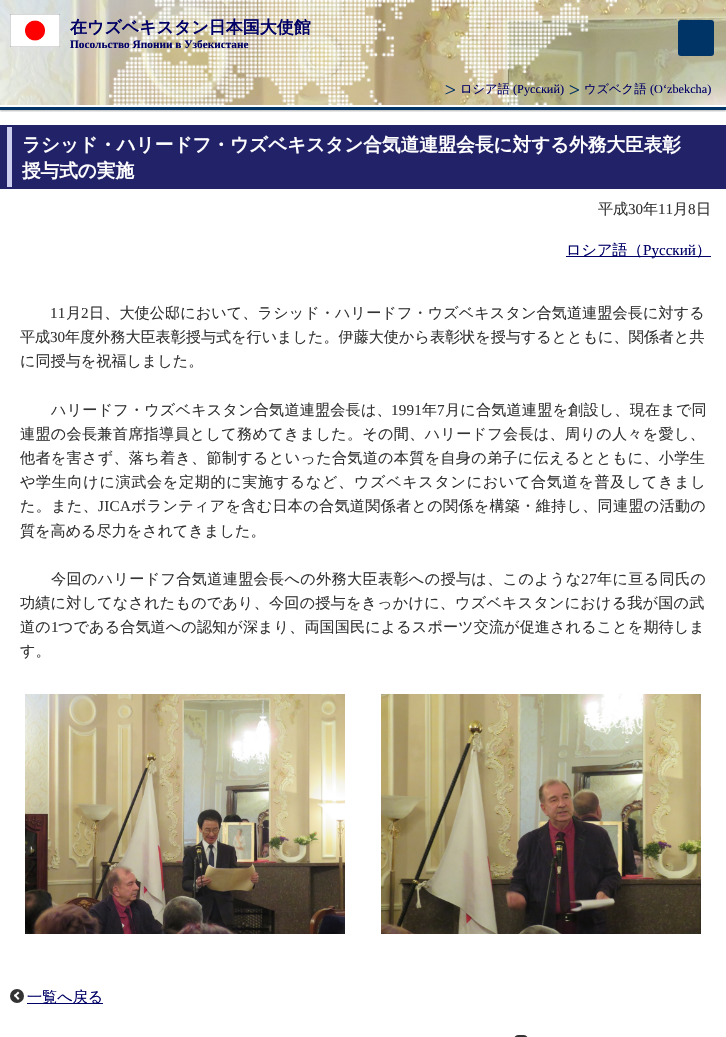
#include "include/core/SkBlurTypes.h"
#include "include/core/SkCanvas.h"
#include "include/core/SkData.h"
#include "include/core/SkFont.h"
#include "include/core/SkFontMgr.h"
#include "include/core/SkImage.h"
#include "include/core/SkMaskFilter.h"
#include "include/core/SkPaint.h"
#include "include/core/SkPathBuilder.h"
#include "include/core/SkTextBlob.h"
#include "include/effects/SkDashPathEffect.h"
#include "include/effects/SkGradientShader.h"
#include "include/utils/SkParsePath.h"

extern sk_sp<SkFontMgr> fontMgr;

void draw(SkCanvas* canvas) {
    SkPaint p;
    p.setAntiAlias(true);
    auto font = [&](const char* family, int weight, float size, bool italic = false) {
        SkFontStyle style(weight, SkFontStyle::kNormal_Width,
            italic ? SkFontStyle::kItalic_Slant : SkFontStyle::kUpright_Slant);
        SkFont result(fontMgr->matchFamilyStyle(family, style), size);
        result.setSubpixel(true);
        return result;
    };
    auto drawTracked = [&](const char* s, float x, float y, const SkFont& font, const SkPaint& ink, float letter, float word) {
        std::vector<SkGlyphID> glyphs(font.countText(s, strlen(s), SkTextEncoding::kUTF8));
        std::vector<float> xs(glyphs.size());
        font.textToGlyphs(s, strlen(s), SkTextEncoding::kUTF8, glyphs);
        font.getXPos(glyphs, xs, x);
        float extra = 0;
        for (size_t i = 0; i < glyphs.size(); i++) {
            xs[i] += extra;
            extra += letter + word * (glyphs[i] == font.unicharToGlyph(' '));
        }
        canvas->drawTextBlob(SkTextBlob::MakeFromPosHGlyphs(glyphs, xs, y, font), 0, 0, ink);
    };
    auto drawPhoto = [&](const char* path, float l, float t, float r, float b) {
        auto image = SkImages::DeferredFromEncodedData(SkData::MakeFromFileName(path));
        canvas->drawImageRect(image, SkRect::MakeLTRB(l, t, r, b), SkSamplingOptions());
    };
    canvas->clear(0xFFFFFFFF);
    drawPhoto("media/1.png", 0, 0, 726, 105);
    canvas->save();
    canvas->clipRect(SkRect::MakeLTRB(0, 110, 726, 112));
    p.setColor(0x4D000000);
    p.setMaskFilter(SkMaskFilter::MakeBlur(kNormal_SkBlurStyle, 1));
    canvas->drawRect(SkRect::MakeLTRB(0, 1, 726, 111), p);
    p.setMaskFilter(nullptr);
    canvas->restore();
    drawPhoto("media/2.png", 109, 0, 617, 105);
    drawPhoto("media/3.png", 10, 14, 60, 47);
    auto font1 = font("WenQuanYi Zen Hei", 700, 17);
    p.setColor(0xFF000066);
    canvas->drawString("在ウズベキスタン日本国大使館", 70, 33, font1, p);
    auto font2 = font("Liberation Serif", 700, 11.3f);
    canvas->drawString("Посольство Японии в Узбекистане", 70, 48, font2, p);
    p.setColor(0xFF003366);
    canvas->drawRoundRect(SkRect::MakeLTRB(678, 20, 714, 56), 3, 3, p);
    p.setColor(0xFF043465);
    canvas->drawPath(SkPathBuilder().moveTo(454.5f, 90.5f).lineTo(445.5f, 86).lineTo(446, 85).lineTo(455, 89.5f).close().detach(), p);
    auto font3 = font("WenQuanYi Zen Hei", 500, 12.25f);
    p.setColor(0xFF000066);
    canvas->drawString("ロシア語", 460, 93, font3, p);
    auto font4 = font("Liberation Serif", 400, 12.25f);
    canvas->drawString("(Русский)", 513, 93, font4, p);
    p.setColor(0xFF043465);
    canvas->drawPath(SkPathBuilder().moveTo(455, 90.5f).lineTo(445.5f, 94.5f).lineTo(445.5f, 93.5f).lineTo(454.5f, 89.5f).close().detach(), p);
    canvas->drawPath(SkPathBuilder().moveTo(578.5f, 90.5f).lineTo(569.5f, 86).lineTo(570, 85).lineTo(579, 89.5f).close().detach(), p);
    p.setColor(0xFF000066);
    canvas->drawString("ウズベク語", 584, 93, font3, p);
    canvas->drawString("(Oʻzbekcha)", 650, 93, font4, p);
    p.setColor(0xFF043465);
    canvas->drawPath(SkPathBuilder().moveTo(579, 90.5f).lineTo(570, 94.5f).lineTo(569.5f, 93.5f).lineTo(578.5f, 89.5f).close().detach(), p);
    {
        const struct { float l, t, r, b; SkColor color; } items[] = {
            {0, 107, 726, 110, 0xFF003366},
            {0, 125, 726, 189, 0xFF222268},
            {7, 127, 12, 187, 0xFFCECEEF},
        };
        for (auto [l, t, r, b, color] : items) {
            p.setColor(color);
            canvas->drawRect(SkRect::MakeLTRB(l, t, r, b), p);
        }
    }
    auto font5 = font("WenQuanYi Zen Hei", 700, 18.6f);
    p.setColor(0xFFFFFFFF);
    canvas->drawString("ラシッド・ハリードフ・ウズベキスタン合気道連盟会長に対する外務大臣表彰", 22, 151, font5, p);
    canvas->drawString("授与式の実施", 22, 177, font5, p);
    auto font6 = font("WenQuanYi Zen Hei", 500, 15.1f);
    p.setColor(0xFF333333);
    canvas->drawString("平成", 598, 214, font6, p);
    auto font7 = font("Liberation Serif", 400, 15.1f);
    canvas->drawString("30", 628, 214, font7, p);
    canvas->drawString("年", 643, 214, font6, p);
    canvas->drawString("11", 658, 214, font7, p);
    canvas->drawString("月", 673, 214, font6, p);
    canvas->drawString("8", 688, 214, font7, p);
    canvas->drawString("日", 696, 214, font6, p);
    p.setColor(0xFF000066);
    canvas->drawRect(SkRect::MakeLTRB(566, 256, 711, 257), p);
    canvas->drawString("ロシア語（", 566, 255, font6, p);
    canvas->drawString("Русский", 643, 255, font7, p);
    canvas->drawString("）", 696, 255, font6, p);
    p.setColor(0xFF333333);
    drawTracked("11", 50, 318, font7, p, 0.1f, 0);
    drawTracked("月", 66, 318, font6, p, 0.1f, 0);
    drawTracked("2", 81, 318, font7, p, 0.1f, 0);
    drawTracked("日、大使公邸において、ラシッド・ハリードフ・ウズベキスタン合気道連盟会長に対する", 89, 318, font6, p, 0.1f, 0);
    canvas->drawString("平成", 20, 342, font6, p);
    canvas->drawString("30", 50, 342, font7, p);
    canvas->drawString("年度外務大臣表彰授与式を行いました。伊藤大使から表彰状を授与するとともに、関係者と共", 65, 342, font6, p);
    canvas->drawString("に同授与を祝福しました。", 20, 366, font6, p);
    drawTracked("ハリードフ・ウズベキスタン合気道連盟会長は、", 51, 415, font6, p, 0.2f, 0);
    drawTracked("1991", 391, 415, font7, p, 0.2f, 0);
    drawTracked("年", 422, 415, font6, p, 0.2f, 0);
    drawTracked("7", 437, 415, font7, p, 0.2f, 0);
    drawTracked("月に合気道連盟を創設し、現在まで同", 445, 415, font6, p, 0.2f, 0);
    drawTracked("連盟の会長兼首席指導員として務めてきました。その間、ハリードフ会長は、周りの人々を愛し、", 20, 439, font6, p, 0.3f, 0);
    drawTracked("他者を害さず、落ち着き、節制するといった合気道の本質を自身の弟子に伝えるとともに、小学生", 20, 463, font6, p, 0.3f, 0);
    drawTracked("や学生向けに演武会を定期的に実施するなど、ウズベキスタンにおいて合気道を普及してきまし", 20, 487, font6, p, 0.65f, 0);
    drawTracked("た。また、", 20, 511, font6, p, 0.3f, 0);
    drawTracked("JICA", 98, 511, font7, p, 0.3f, 0);
    drawTracked("ボランティアを含む日本の合気道関係者との関係を構築・維持し、同連盟の活動の", 131, 511, font6, p, 0.3f, 0);
    canvas->drawString("質を高める尽力をされてきました。", 20, 536, font6, p);
    drawTracked("今回のハリードフ合気道連盟会長への外務大臣表彰への授与は、このような", 51, 584, font6, p, 0.35f, 0);
    drawTracked("27", 581, 584, font7, p, 0.35f, 0);
    drawTracked("年に亘る同氏の", 597, 584, font6, p, 0.35f, 0);
    drawTracked("功績に対してなされたものであり、今回の授与をきっかけに、ウズベキスタンにおける我が国の武", 20, 608, font6, p, 0.2f, 0);
    drawTracked("道の", 20, 632, font6, p, 0.1f, 0);
    drawTracked("1", 51, 632, font7, p, 0.1f, 0);
    drawTracked("つである合気道への認知が深まり、両国国民によるスポーツ交流が促進されることを期待しま", 58, 632, font6, p, 0.1f, 0);
    canvas->drawString("す。", 20, 656, font6, p);
    drawPhoto("media/4.png", 25, 694, 345, 934);
    drawPhoto("media/5.png", 381, 694, 701, 934);
    canvas->drawCircle(17, 996, 7, p);
    p.setColor(0xFF000066);
    canvas->drawRect(SkRect::MakeLTRB(27, 1003, 103, 1004), p);
    canvas->drawString("一覧へ戻る", 27, 1002, font6, p);
    p.setColor(0xFFFFFFFF);
    canvas->drawPath(SkPathBuilder().moveTo(19.5f, 998.5f).lineTo(18, 1000).lineTo(14, 995.5f).lineTo(15, 994).close().detach(), p);
    canvas->drawPath(SkPathBuilder().moveTo(19.5f, 993).lineTo(15, 997).lineTo(14, 995.5f).lineTo(18, 991.5f).close().detach(), p);
    p.setColor(0xFF333333);
    canvas->drawRoundRect(SkRect::MakeLTRB(514, 1035, 528, 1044), 7, 7, p);
}
